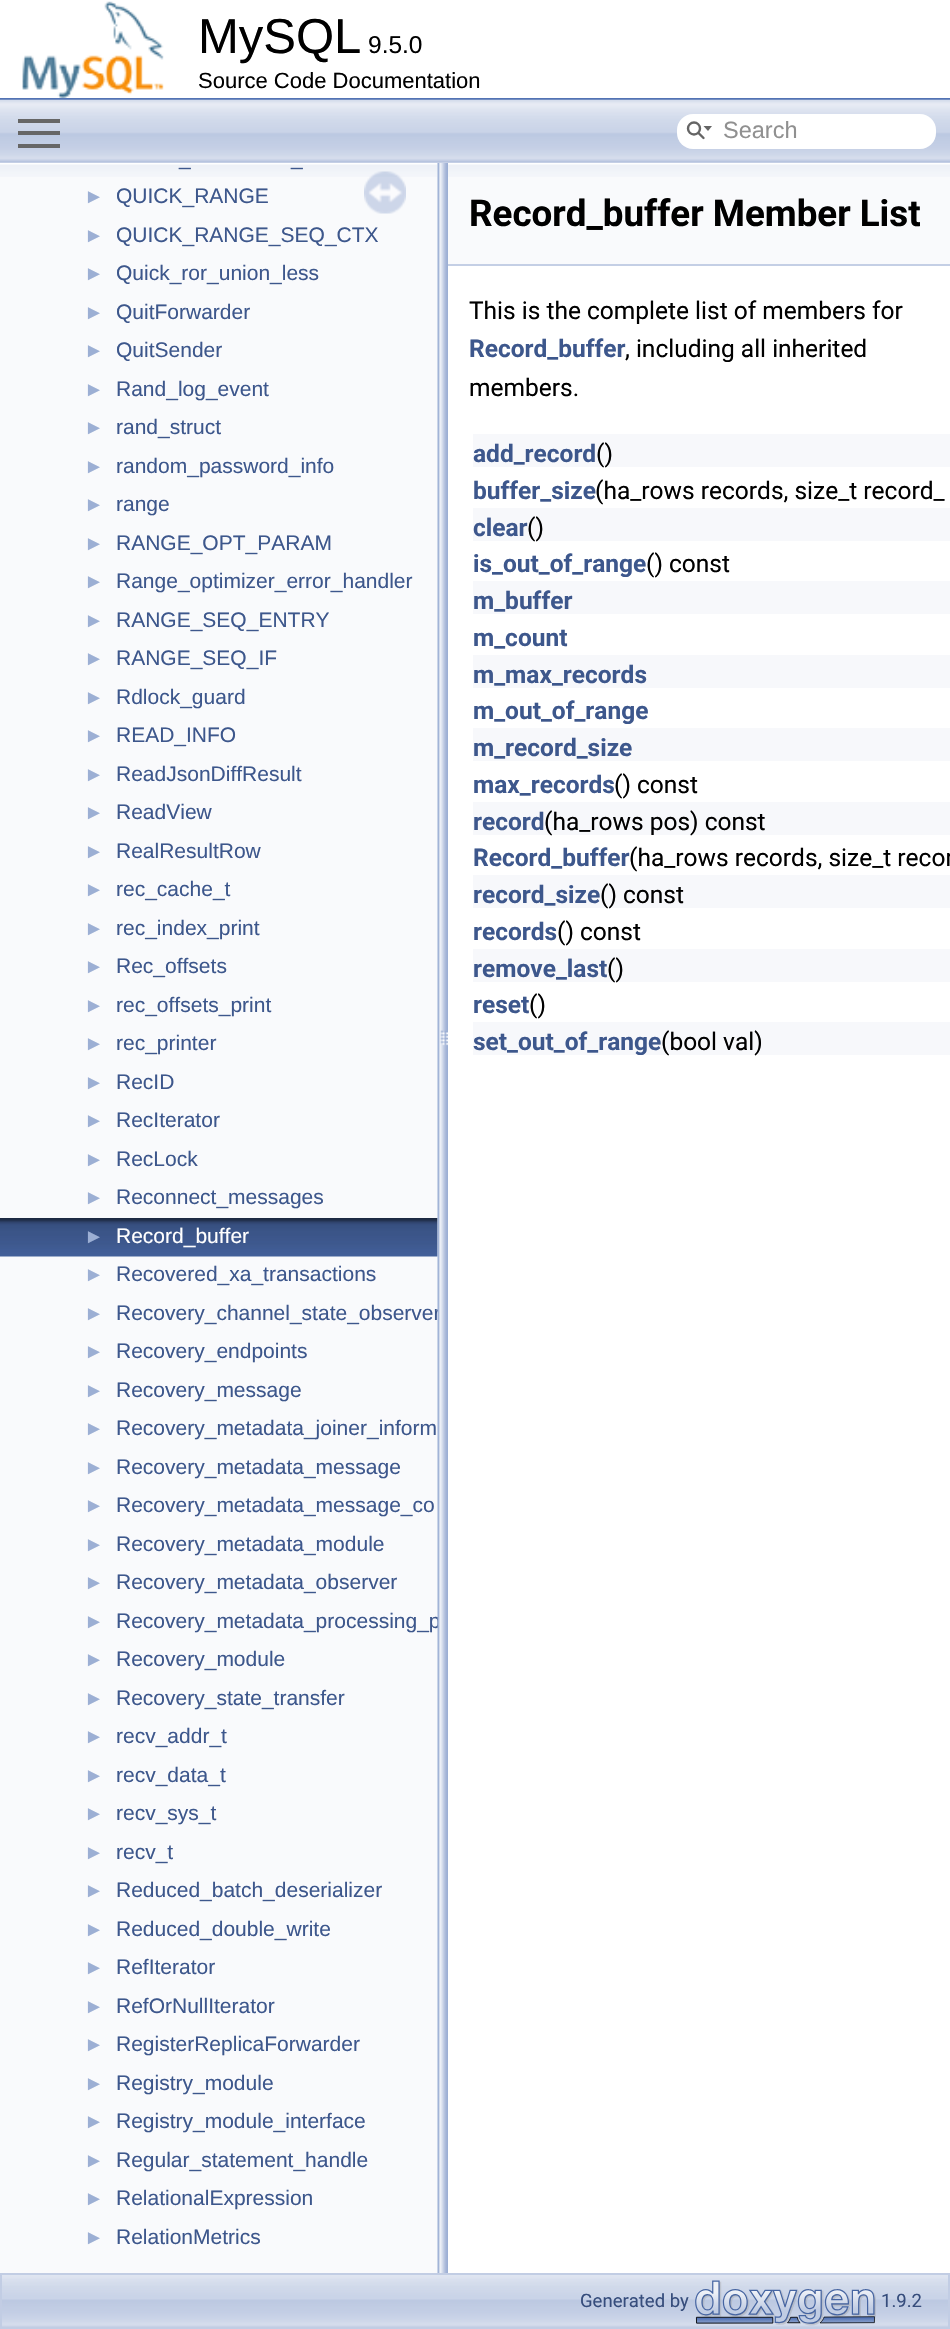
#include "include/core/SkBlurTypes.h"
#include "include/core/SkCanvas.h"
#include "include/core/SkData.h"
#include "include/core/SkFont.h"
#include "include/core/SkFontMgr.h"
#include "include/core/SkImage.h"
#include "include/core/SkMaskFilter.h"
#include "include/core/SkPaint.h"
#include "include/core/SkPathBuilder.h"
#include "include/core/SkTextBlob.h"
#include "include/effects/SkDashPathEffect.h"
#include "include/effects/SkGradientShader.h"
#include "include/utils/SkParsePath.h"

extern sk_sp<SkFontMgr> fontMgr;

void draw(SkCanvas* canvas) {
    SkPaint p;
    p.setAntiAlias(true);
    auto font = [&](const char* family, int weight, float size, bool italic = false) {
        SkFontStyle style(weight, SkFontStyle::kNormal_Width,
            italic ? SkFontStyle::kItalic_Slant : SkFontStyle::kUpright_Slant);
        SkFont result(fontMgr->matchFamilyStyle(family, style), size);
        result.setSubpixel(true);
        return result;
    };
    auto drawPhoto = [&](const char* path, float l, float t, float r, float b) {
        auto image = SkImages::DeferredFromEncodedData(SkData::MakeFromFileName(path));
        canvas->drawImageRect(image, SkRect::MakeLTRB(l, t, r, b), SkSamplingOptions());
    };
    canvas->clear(0xFFFFFFFF);
    p.setColor(0xFF5373B4);
    canvas->drawRect(SkRect::MakeLTRB(0, 98, 950, 100), p);
    drawPhoto("media/1.png", 22, 1, 164, 98);
    auto font1 = font("Liberation Sans", 400, 49);
    p.setColor(0xFF000000);
    canvas->drawString("MySQL", 198, 53, font1, p);
    auto font2 = font("Liberation Sans", 400, 24.5f);
    canvas->drawString("9.5.0", 368, 53, font2, p);
    auto font3 = font("Liberation Sans", 400, 22);
    canvas->drawString("Source Code Documentation", 198, 88, font3, p);
    p.setColor(0xFFF9FAFC);
    canvas->drawRect(SkRect::MakeLTRB(0, 163, 438, 2273), p);
    drawPhoto("media/3.png", 0, 163, 438, 177);
    drawPhoto("media/4.png", 0, 1218, 438, 1257);
    auto font4 = font("Liberation Sans", 400, 21);
    p.setColor(0xFF3D578C);
    canvas->drawString("Recovery_channel_state_observer", 116, 1320, font4, p);
    canvas->drawString("Recovery_metadata_processing_p", 116, 1628, font4, p);
    drawPhoto("media/6.png", 437, 162, 448, 2273);
    drawPhoto("media/2.png", 0, 99, 950, 163);
    {
        const struct { float l, t, r, b; SkColor color; } items[] = {
            {18, 131, 60, 135, 0xFF666666},
            {18, 119, 60, 123, 0xFF666666},
            {18, 144, 60, 148, 0xFF666666},
        };
        for (auto [l, t, r, b, color] : items) {
            p.setColor(color);
            canvas->drawRect(SkRect::MakeLTRB(l, t, r, b), p);
        }
    }
    p.setColor(0xFFFFFFFF);
    canvas->drawRoundRect(SkRect::MakeLTRB(677, 114, 936, 149), 16, 16, p);
    p.setStyle(SkPaint::kStroke_Style);
    p.setStrokeWidth(2.4f);
    p.setColor(0xFF656565);
    canvas->drawCircle(694, 128.5f, 6, p);
    p.setStyle(SkPaint::kFill_Style);
    canvas->drawPath(SkPathBuilder().moveTo(703.5f, 126).lineTo(708, 131).lineTo(712, 126).close().detach(), p);
    p.setStyle(SkPaint::kStroke_Style);
    p.setStrokeCap(SkPaint::kRound_Cap);
    canvas->drawPath(SkPathBuilder().moveTo(698.5f, 133).lineTo(703.5f, 138).detach(), p);
    auto font5 = font("Liberation Sans", 400, 23.5f);
    p.setStyle(SkPaint::kFill_Style);
    p.setColor(0xFF909090);
    canvas->drawString("Search", 723, 138, font5, p);
    p.setColor(0xFF3D578C);
    canvas->drawString("_", 179, 165, font4, p);
    canvas->drawString("_", 291, 165, font4, p);
    auto font6 = font("Liberation Sans", 400, 20);
    p.setColor(0xFF9CAFD4);
    canvas->drawString("►", 84, 203, font6, p);
    p.setColor(0xFF3D578C);
    canvas->drawString("QUICK_RANGE", 116, 203, font4, p);
    p.setColor(0xFF9CAFD4);
    canvas->drawString("►", 84, 242, font6, p);
    p.setColor(0xFF3D578C);
    canvas->drawString("QUICK_RANGE_SEQ_CTX", 116, 242, font4, p);
    p.setColor(0xFF9CAFD4);
    canvas->drawString("►", 84, 280, font6, p);
    p.setColor(0xFF3D578C);
    canvas->drawString("Quick_ror_union_less", 116, 280, font4, p);
    p.setColor(0xFF9CAFD4);
    canvas->drawString("►", 84, 319, font6, p);
    p.setColor(0xFF3D578C);
    canvas->drawString("QuitForwarder", 116, 319, font4, p);
    p.setColor(0xFF9CAFD4);
    canvas->drawString("►", 84, 357, font6, p);
    p.setColor(0xFF3D578C);
    canvas->drawString("QuitSender", 116, 357, font4, p);
    p.setColor(0xFF9CAFD4);
    canvas->drawString("►", 84, 396, font6, p);
    p.setColor(0xFF3D578C);
    canvas->drawString("Rand_log_event", 116, 396, font4, p);
    p.setColor(0xFF9CAFD4);
    canvas->drawString("►", 84, 434, font6, p);
    p.setColor(0xFF3D578C);
    canvas->drawString("rand_struct", 116, 434, font4, p);
    p.setColor(0xFF9CAFD4);
    canvas->drawString("►", 84, 473, font6, p);
    p.setColor(0xFF3D578C);
    canvas->drawString("random_password_info", 116, 473, font4, p);
    p.setColor(0xFF9CAFD4);
    canvas->drawString("►", 84, 511, font6, p);
    p.setColor(0xFF3D578C);
    canvas->drawString("range", 116, 511, font4, p);
    p.setColor(0xFF9CAFD4);
    canvas->drawString("►", 84, 550, font6, p);
    p.setColor(0xFF3D578C);
    canvas->drawString("RANGE_OPT_PARAM", 116, 550, font4, p);
    p.setColor(0xFF9CAFD4);
    canvas->drawString("►", 84, 588, font6, p);
    p.setColor(0xFF3D578C);
    canvas->drawString("Range_optimizer_error_handler", 116, 588, font4, p);
    p.setColor(0xFF9CAFD4);
    canvas->drawString("►", 84, 627, font6, p);
    p.setColor(0xFF3D578C);
    canvas->drawString("RANGE_SEQ_ENTRY", 116, 627, font4, p);
    p.setColor(0xFF9CAFD4);
    canvas->drawString("►", 84, 665, font6, p);
    p.setColor(0xFF3D578C);
    canvas->drawString("RANGE_SEQ_IF", 116, 665, font4, p);
    p.setColor(0xFF9CAFD4);
    canvas->drawString("►", 84, 704, font6, p);
    p.setColor(0xFF3D578C);
    canvas->drawString("Rdlock_guard", 116, 704, font4, p);
    p.setColor(0xFF9CAFD4);
    canvas->drawString("►", 84, 742, font6, p);
    p.setColor(0xFF3D578C);
    canvas->drawString("READ_INFO", 116, 742, font4, p);
    p.setColor(0xFF9CAFD4);
    canvas->drawString("►", 84, 781, font6, p);
    p.setColor(0xFF3D578C);
    canvas->drawString("ReadJsonDiffResult", 116, 781, font4, p);
    p.setColor(0xFF9CAFD4);
    canvas->drawString("►", 84, 819, font6, p);
    p.setColor(0xFF3D578C);
    canvas->drawString("ReadView", 116, 819, font4, p);
    p.setColor(0xFF9CAFD4);
    canvas->drawString("►", 84, 858, font6, p);
    p.setColor(0xFF3D578C);
    canvas->drawString("RealResultRow", 116, 858, font4, p);
    p.setColor(0xFF9CAFD4);
    canvas->drawString("►", 84, 896, font6, p);
    p.setColor(0xFF3D578C);
    canvas->drawString("rec_cache_t", 116, 896, font4, p);
    p.setColor(0xFF9CAFD4);
    canvas->drawString("►", 84, 935, font6, p);
    p.setColor(0xFF3D578C);
    canvas->drawString("rec_index_print", 116, 935, font4, p);
    p.setColor(0xFF9CAFD4);
    canvas->drawString("►", 84, 973, font6, p);
    p.setColor(0xFF3D578C);
    canvas->drawString("Rec_offsets", 116, 973, font4, p);
    p.setColor(0xFF9CAFD4);
    canvas->drawString("►", 84, 1012, font6, p);
    p.setColor(0xFF3D578C);
    canvas->drawString("rec_offsets_print", 116, 1012, font4, p);
    p.setColor(0xFF9CAFD4);
    canvas->drawString("►", 84, 1050, font6, p);
    p.setColor(0xFF3D578C);
    canvas->drawString("rec_printer", 116, 1050, font4, p);
    p.setColor(0xFF9CAFD4);
    canvas->drawString("►", 84, 1089, font6, p);
    p.setColor(0xFF3D578C);
    canvas->drawString("RecID", 116, 1089, font4, p);
    p.setColor(0xFF9CAFD4);
    canvas->drawString("►", 84, 1127, font6, p);
    p.setColor(0xFF3D578C);
    canvas->drawString("RecIterator", 116, 1127, font4, p);
    p.setColor(0xFF9CAFD4);
    canvas->drawString("►", 84, 1166, font6, p);
    p.setColor(0xFF3D578C);
    canvas->drawString("RecLock", 116, 1166, font4, p);
    p.setColor(0xFF9CAFD4);
    canvas->drawString("►", 84, 1204, font6, p);
    p.setColor(0xFF3D578C);
    canvas->drawString("Reconnect_messages", 116, 1204, font4, p);
    p.setColor(0xFF9CAFD4);
    canvas->drawString("►", 84, 1243, font6, p);
    p.setColor(0xFFFFFFFF);
    canvas->drawString("Record_buffer", 116, 1243, font4, p);
    p.setColor(0xFF9CAFD4);
    canvas->drawString("►", 84, 1281, font6, p);
    p.setColor(0xFF3D578C);
    canvas->drawString("Recovered_xa_transactions", 116, 1281, font4, p);
    p.setColor(0xFF9CAFD4);
    canvas->drawString("►", 84, 1320, font6, p);
    canvas->drawString("►", 84, 1358, font6, p);
    p.setColor(0xFF3D578C);
    canvas->drawString("Recovery_endpoints", 116, 1358, font4, p);
    p.setColor(0xFF9CAFD4);
    canvas->drawString("►", 84, 1397, font6, p);
    p.setColor(0xFF3D578C);
    canvas->drawString("Recovery_message", 116, 1397, font4, p);
    p.setColor(0xFF9CAFD4);
    canvas->drawString("►", 84, 1435, font6, p);
    p.setColor(0xFF3D578C);
    canvas->drawString("Recovery_metadata_joiner_inform", 116, 1435, font4, p);
    p.setColor(0xFF9CAFD4);
    canvas->drawString("►", 84, 1474, font6, p);
    p.setColor(0xFF3D578C);
    canvas->drawString("Recovery_metadata_message", 116, 1474, font4, p);
    p.setColor(0xFF9CAFD4);
    canvas->drawString("►", 84, 1512, font6, p);
    p.setColor(0xFF3D578C);
    canvas->drawString("Recovery_metadata_message_co", 116, 1512, font4, p);
    p.setColor(0xFF9CAFD4);
    canvas->drawString("►", 84, 1551, font6, p);
    p.setColor(0xFF3D578C);
    canvas->drawString("Recovery_metadata_module", 116, 1551, font4, p);
    p.setColor(0xFF9CAFD4);
    canvas->drawString("►", 84, 1589, font6, p);
    p.setColor(0xFF3D578C);
    canvas->drawString("Recovery_metadata_observer", 116, 1589, font4, p);
    p.setColor(0xFF9CAFD4);
    canvas->drawString("►", 84, 1628, font6, p);
    canvas->drawString("►", 84, 1666, font6, p);
    p.setColor(0xFF3D578C);
    canvas->drawString("Recovery_module", 116, 1666, font4, p);
    p.setColor(0xFF9CAFD4);
    canvas->drawString("►", 84, 1705, font6, p);
    p.setColor(0xFF3D578C);
    canvas->drawString("Recovery_state_transfer", 116, 1705, font4, p);
    p.setColor(0xFF9CAFD4);
    canvas->drawString("►", 84, 1743, font6, p);
    p.setColor(0xFF3D578C);
    canvas->drawString("recv_addr_t", 116, 1743, font4, p);
    p.setColor(0xFF9CAFD4);
    canvas->drawString("►", 84, 1782, font6, p);
    p.setColor(0xFF3D578C);
    canvas->drawString("recv_data_t", 116, 1782, font4, p);
    p.setColor(0xFF9CAFD4);
    canvas->drawString("►", 84, 1820, font6, p);
    p.setColor(0xFF3D578C);
    canvas->drawString("recv_sys_t", 116, 1820, font4, p);
    p.setColor(0xFF9CAFD4);
    canvas->drawString("►", 84, 1859, font6, p);
    p.setColor(0xFF3D578C);
    canvas->drawString("recv_t", 116, 1859, font4, p);
    p.setColor(0xFF9CAFD4);
    canvas->drawString("►", 84, 1897, font6, p);
    p.setColor(0xFF3D578C);
    canvas->drawString("Reduced_batch_deserializer", 116, 1897, font4, p);
    p.setColor(0xFF9CAFD4);
    canvas->drawString("►", 84, 1936, font6, p);
    p.setColor(0xFF3D578C);
    canvas->drawString("Reduced_double_write", 116, 1936, font4, p);
    p.setColor(0xFF9CAFD4);
    canvas->drawString("►", 84, 1974, font6, p);
    p.setColor(0xFF3D578C);
    canvas->drawString("RefIterator", 116, 1974, font4, p);
    p.setColor(0xFF9CAFD4);
    canvas->drawString("►", 84, 2013, font6, p);
    p.setColor(0xFF3D578C);
    canvas->drawString("RefOrNullIterator", 116, 2013, font4, p);
    p.setColor(0xFF9CAFD4);
    canvas->drawString("►", 84, 2051, font6, p);
    p.setColor(0xFF3D578C);
    canvas->drawString("RegisterReplicaForwarder", 116, 2051, font4, p);
    p.setColor(0xFF9CAFD4);
    canvas->drawString("►", 84, 2090, font6, p);
    p.setColor(0xFF3D578C);
    canvas->drawString("Registry_module", 116, 2090, font4, p);
    p.setColor(0xFF9CAFD4);
    canvas->drawString("►", 84, 2128, font6, p);
    p.setColor(0xFF3D578C);
    canvas->drawString("Registry_module_interface", 116, 2128, font4, p);
    p.setColor(0xFF9CAFD4);
    canvas->drawString("►", 84, 2167, font6, p);
    p.setColor(0xFF3D578C);
    canvas->drawString("Regular_statement_handle", 116, 2167, font4, p);
    p.setColor(0xFF9CAFD4);
    canvas->drawString("►", 84, 2205, font6, p);
    p.setColor(0xFF3D578C);
    canvas->drawString("RelationalExpression", 116, 2205, font4, p);
    p.setColor(0xFF9CAFD4);
    canvas->drawString("►", 84, 2244, font6, p);
    p.setColor(0xFF3D578C);
    canvas->drawString("RelationMetrics", 116, 2244, font4, p);
    drawPhoto("media/5.png", 364, 171, 406, 214);
    p.setColor(0xFFF9FAFC);
    canvas->drawRect(SkRect::MakeLTRB(448, 177, 950, 264), p);
    drawPhoto("media/7.png", 448, 163, 950, 177);
    p.setColor(0xFFC4CFE5);
    canvas->drawRect(SkRect::MakeLTRB(448, 264, 950, 266), p);
    auto font7 = font("Roboto", 700, 36.75f);
    p.setColor(0xFF000000);
    canvas->drawString("Record_buffer Member List", 469, 226, font7, p);
    auto font8 = font("Roboto", 400, 24.5f);
    canvas->drawString("This is the complete list of members for", 469, 319, font8, p);
    auto font9 = font("Roboto", 700, 24.5f);
    p.setColor(0xFF3D578C);
    canvas->drawString("Record_buffer", 469, 357, font9, p);
    p.setColor(0xFF000000);
    canvas->drawString(", including all inherited", 625, 357, font8, p);
    canvas->drawString("members.", 469, 396, font8, p);
    p.setColor(0xFFF7F8FB);
    canvas->drawRect(SkRect::MakeLTRB(473, 434, 950, 467), p);
    p.setColor(0xFF3D578C);
    canvas->drawString("add_record", 473, 462, font9, p);
    p.setColor(0xFF000000);
    canvas->drawString("()", 596, 462, font8, p);
    p.setColor(0xFF3D578C);
    canvas->drawString("buffer_size", 473, 499, font9, p);
    p.setColor(0xFF000000);
    canvas->drawString("(ha_rows records, size_t record_", 595, 499, font8, p);
    p.setColor(0xFFF7F8FB);
    canvas->drawRect(SkRect::MakeLTRB(473, 508, 950, 541), p);
    p.setColor(0xFF3D578C);
    canvas->drawString("clear", 473, 536, font9, p);
    p.setColor(0xFF000000);
    canvas->drawString("()", 527, 536, font8, p);
    p.setColor(0xFF3D578C);
    canvas->drawString("is_out_of_range", 473, 572, font9, p);
    p.setColor(0xFF000000);
    canvas->drawString("() const", 646, 572, font8, p);
    p.setColor(0xFFF7F8FB);
    canvas->drawRect(SkRect::MakeLTRB(473, 581, 950, 614), p);
    p.setColor(0xFF3D578C);
    canvas->drawString("m_buffer", 473, 609, font9, p);
    canvas->drawString("m_count", 473, 646, font9, p);
    p.setColor(0xFFF7F8FB);
    canvas->drawRect(SkRect::MakeLTRB(473, 655, 950, 688), p);
    p.setColor(0xFF3D578C);
    canvas->drawString("m_max_records", 473, 683, font9, p);
    canvas->drawString("m_out_of_range", 473, 719, font9, p);
    p.setColor(0xFFF7F8FB);
    canvas->drawRect(SkRect::MakeLTRB(473, 728, 950, 761), p);
    p.setColor(0xFF3D578C);
    canvas->drawString("m_record_size", 473, 756, font9, p);
    canvas->drawString("max_records", 473, 793, font9, p);
    p.setColor(0xFF000000);
    canvas->drawString("() const", 614, 793, font8, p);
    p.setColor(0xFFF7F8FB);
    canvas->drawRect(SkRect::MakeLTRB(473, 802, 950, 835), p);
    p.setColor(0xFF3D578C);
    canvas->drawString("record", 473, 830, font9, p);
    p.setColor(0xFF000000);
    canvas->drawString("(ha_rows pos) const", 544, 830, font8, p);
    p.setColor(0xFF3D578C);
    canvas->drawString("Record_buffer", 473, 866, font9, p);
    p.setColor(0xFF000000);
    canvas->drawString("(ha_rows records, size_t recor", 629, 866, font8, p);
    p.setColor(0xFFF7F8FB);
    canvas->drawRect(SkRect::MakeLTRB(473, 875, 950, 908), p);
    p.setColor(0xFF3D578C);
    canvas->drawString("record_size", 473, 903, font9, p);
    p.setColor(0xFF000000);
    canvas->drawString("() const", 600, 903, font8, p);
    p.setColor(0xFF3D578C);
    canvas->drawString("records", 473, 940, font9, p);
    p.setColor(0xFF000000);
    canvas->drawString("() const", 557, 940, font8, p);
    p.setColor(0xFFF7F8FB);
    canvas->drawRect(SkRect::MakeLTRB(473, 949, 950, 982), p);
    p.setColor(0xFF3D578C);
    canvas->drawString("remove_last", 473, 977, font9, p);
    p.setColor(0xFF000000);
    canvas->drawString("()", 607, 977, font8, p);
    p.setColor(0xFF3D578C);
    canvas->drawString("reset", 473, 1013, font9, p);
    p.setColor(0xFF000000);
    canvas->drawString("()", 529, 1013, font8, p);
    p.setColor(0xFFF7F8FB);
    canvas->drawRect(SkRect::MakeLTRB(473, 1022, 950, 1055), p);
    p.setColor(0xFF3D578C);
    canvas->drawString("set_out_of_range", 473, 1050, font9, p);
    p.setColor(0xFF000000);
    canvas->drawString("(bool val)", 661, 1050, font8, p);
    drawPhoto("media/8.png", 2, 2275, 948, 2327);
    p.setStyle(SkPaint::kStroke_Style);
    p.setStrokeWidth(2);
    p.setStrokeCap(SkPaint::kButt_Cap);
    p.setColor(0xFFC2CDE4);
    canvas->drawRect(SkRect::MakeLTRB(1, 2274, 949, 2328), p);
    auto font10 = font("Roboto", 400, 18.5f);
    p.setStyle(SkPaint::kFill_Style);
    p.setColor(0xFF364D7C);
    canvas->drawString("Generated by", 580, 2307, font10, p);
    drawPhoto("media/9.png", 695, 2280, 876, 2326);
    canvas->drawString("1.9.2", 881, 2307, font10, p);
}
